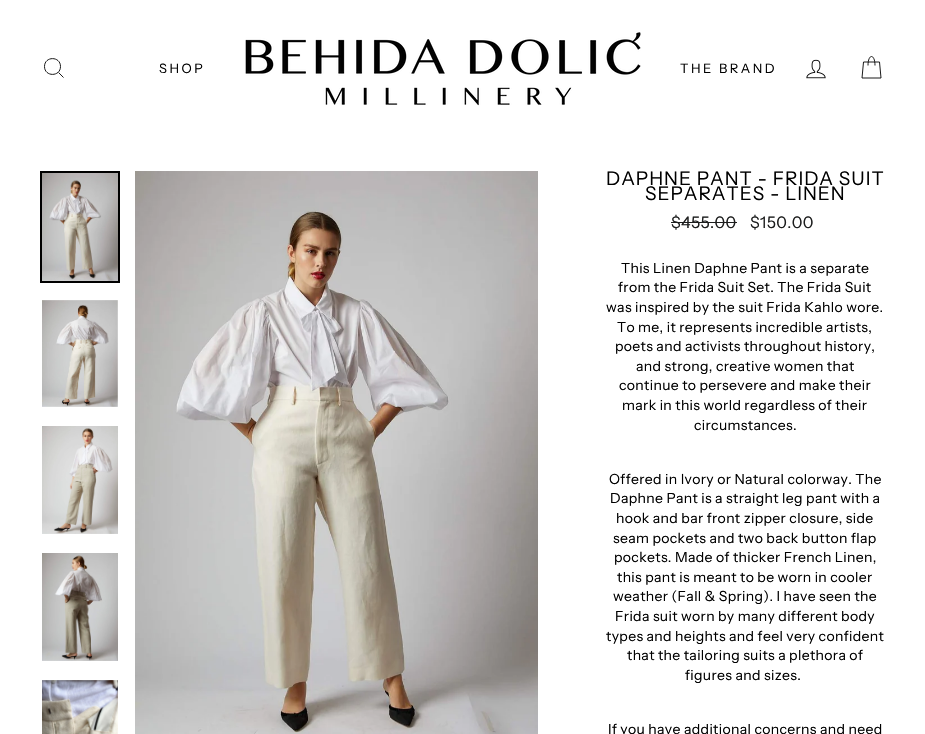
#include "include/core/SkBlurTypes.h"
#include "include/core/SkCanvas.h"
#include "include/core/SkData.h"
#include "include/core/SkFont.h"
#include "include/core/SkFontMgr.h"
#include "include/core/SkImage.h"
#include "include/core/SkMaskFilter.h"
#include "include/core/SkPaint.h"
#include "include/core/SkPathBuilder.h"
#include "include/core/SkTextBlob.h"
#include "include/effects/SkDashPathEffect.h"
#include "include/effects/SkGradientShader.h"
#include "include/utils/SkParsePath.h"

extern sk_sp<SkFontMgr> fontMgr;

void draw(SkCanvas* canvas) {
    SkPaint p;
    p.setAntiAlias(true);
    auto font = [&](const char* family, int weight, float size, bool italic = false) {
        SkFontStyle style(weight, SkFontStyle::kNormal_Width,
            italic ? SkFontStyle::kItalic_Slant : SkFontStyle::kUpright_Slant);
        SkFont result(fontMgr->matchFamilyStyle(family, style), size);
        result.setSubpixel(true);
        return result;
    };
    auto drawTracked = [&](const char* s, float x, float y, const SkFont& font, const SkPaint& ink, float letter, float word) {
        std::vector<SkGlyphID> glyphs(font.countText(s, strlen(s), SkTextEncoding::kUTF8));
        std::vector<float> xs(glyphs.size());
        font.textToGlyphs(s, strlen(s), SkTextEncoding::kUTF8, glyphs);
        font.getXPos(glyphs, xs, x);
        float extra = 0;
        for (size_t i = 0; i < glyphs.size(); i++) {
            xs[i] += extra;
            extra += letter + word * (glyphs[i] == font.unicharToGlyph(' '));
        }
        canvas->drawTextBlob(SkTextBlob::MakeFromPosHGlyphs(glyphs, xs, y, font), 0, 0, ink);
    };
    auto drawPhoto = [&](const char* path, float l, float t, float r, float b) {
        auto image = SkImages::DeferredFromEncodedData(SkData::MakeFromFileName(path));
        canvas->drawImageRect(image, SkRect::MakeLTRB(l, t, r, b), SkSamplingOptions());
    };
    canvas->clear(0xFFFFFFFF);
    p.setStyle(SkPaint::kStroke_Style);
    p.setStrokeWidth(0.9f);
    p.setColor(0xFF000000);
    canvas->drawPath(SkPathBuilder().moveTo(60.5f, 66.5f).cubicTo(60.5f, 77, 44.5f, 77, 44.5f, 66.5f).cubicTo(44.5f, 56, 60.5f, 56, 60.5f, 66.5f).close().moveTo(63.5f, 77.5f).lineTo(58.5f, 72.5f).detach(), p);
    auto font1 = font("Instrument Sans", 400, 13);
    p.setStyle(SkPaint::kFill_Style);
    drawTracked("SHOP", 159, 73, font1, p, 2.5f, 0);
    drawPhoto("media/1.png", 245, 32, 641, 106);
    drawTracked("THE BRAND", 680, 73, font1, p, 2.5f, 0);
    drawPhoto("media/2.png", 806, 59, 826, 79);
    p.setStyle(SkPaint::kStroke_Style);
    canvas->drawPath(SkPathBuilder().moveTo(868, 65.5f).cubicTo(868, 53.5f, 875, 53.5f, 875, 65.5f).moveTo(863.5f, 62).lineTo(879.5f, 62).lineTo(881, 78).lineTo(862, 78).close().detach(), p);
    p.setStrokeWidth(2);
    canvas->drawRect(SkRect::MakeLTRB(41, 172, 119, 282), p);
    drawPhoto("media/3.png", 42, 173, 118, 281);
    drawPhoto("media/4.png", 42, 300, 118, 407);
    drawPhoto("media/5.png", 42, 426, 118, 534);
    drawPhoto("media/6.png", 42, 553, 118, 661);
    drawPhoto("media/7.png", 42, 680, 118, 734);
    drawPhoto("media/8.png", 135, 171, 538, 734);
    auto font2 = font("Instrument Sans", 400, 18.9f);
    p.setStyle(SkPaint::kFill_Style);
    drawTracked("DAPHNE PANT - FRIDA SUIT", 606, 185, font2, p, 0.95f, 0);
    drawTracked("SEPARATES - LINEN", 645, 200, font2, p, 0.95f, 0);
    auto font3 = font("Instrument Sans", 400, 16);
    p.setColor(0xFF1C1D1D);
    drawTracked("$455.00", 671, 228, font3, p, 0.35f, 0);
    canvas->drawRect(SkRect::MakeLTRB(671, 222, 737, 223), p);
    drawTracked("$150.00", 750, 228, font3, p, 0.35f, 0);
    auto font4 = font("Instrument Sans", 400, 14);
    p.setColor(0xFF000000);
    {
        const struct { const char* s; float x, y; } items[] = {
            {"This Linen Daphne Pant is a separate", 621, 273},
            {"from the Frida Suit Set. The Frida Suit", 618, 292},
            {"was inspired by the suit Frida Kahlo wore.", 606, 312},
            {"To me, it represents incredible artists,", 617, 332},
            {"poets and activists throughout history,", 615, 351},
            {"and strong, creative women that", 636, 371},
            {"continue to persevere and make their", 619, 390},
            {"mark in this world regardless of their", 622, 410},
            {"circumstances.", 694, 430},
            {"Offered in Ivory or Natural colorway. The", 609, 484},
            {"Daphne Pant is a straight leg pant with a", 610, 503},
            {"hook and bar front zipper closure, side", 616, 523},
            {"seam pockets and two back button flap", 613, 543},
            {"pockets. Made of thicker French Linen,", 614, 562},
            {"this pant is meant to be worn in cooler", 617, 582},
            {"weather (Fall & Spring). I have seen the", 613, 601},
            {"Frida suit worn by many different body", 615, 621},
            {"types and heights and feel very confident", 606, 641},
            {"that the tailoring suits a plethora of", 627, 660},
            {"figures and sizes.", 685, 680},
            {"If you have additional concerns and need", 608, 734},
        };
        for (auto [s, x, y] : items) {
            drawTracked(s, x, y, font4, p, 0.35f, 0);
        }
    }
}
